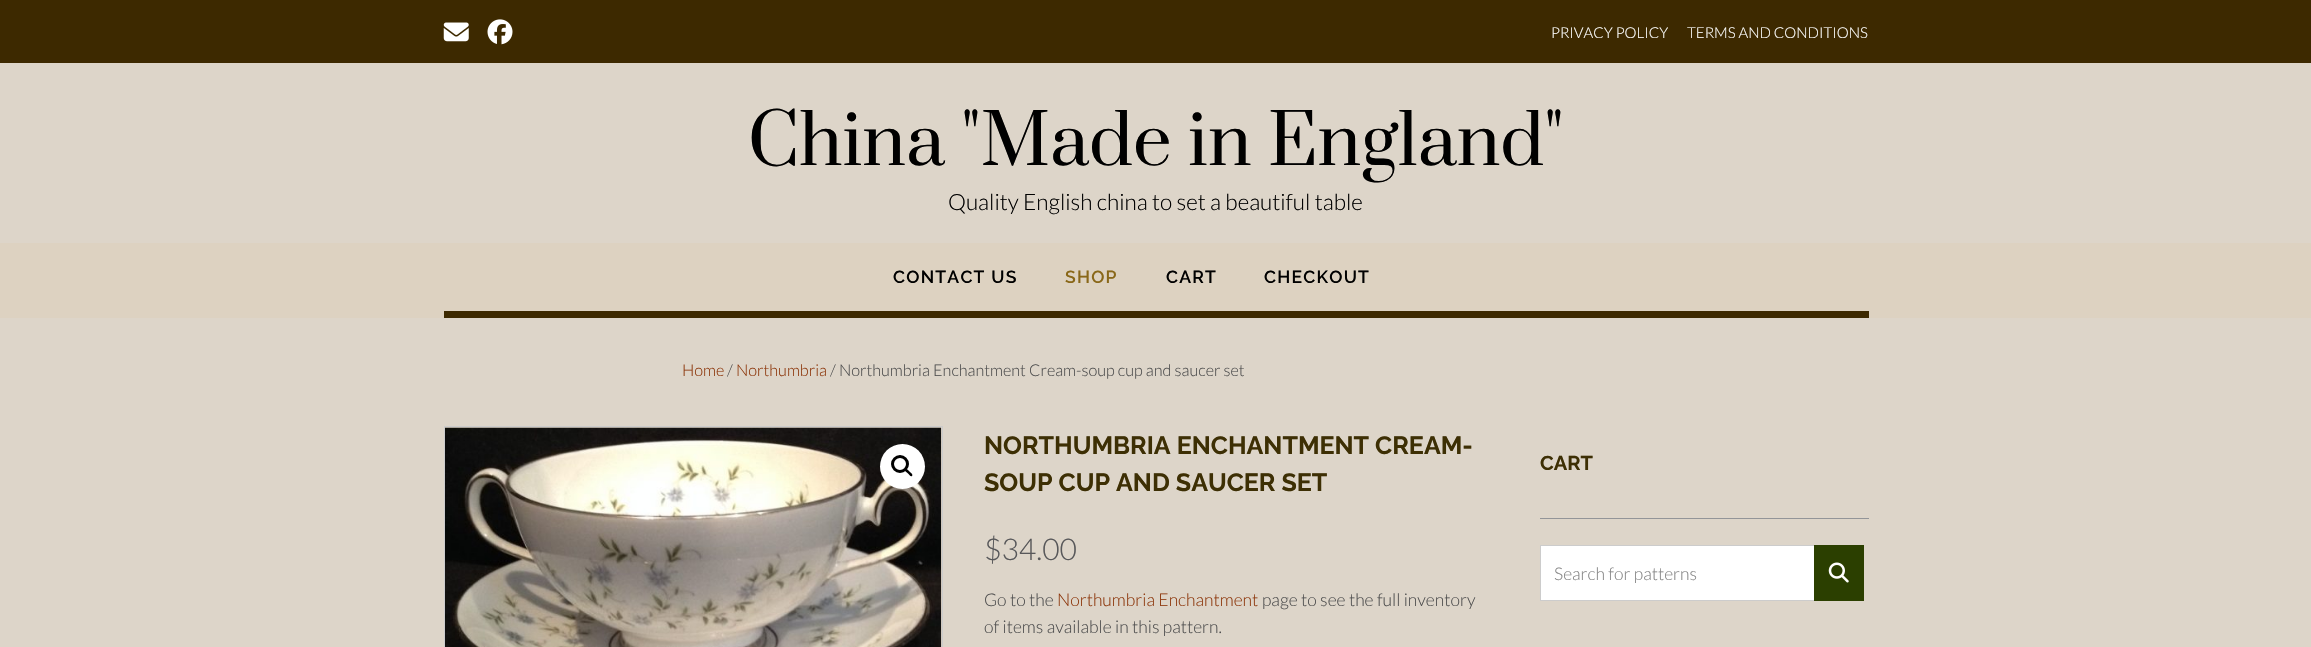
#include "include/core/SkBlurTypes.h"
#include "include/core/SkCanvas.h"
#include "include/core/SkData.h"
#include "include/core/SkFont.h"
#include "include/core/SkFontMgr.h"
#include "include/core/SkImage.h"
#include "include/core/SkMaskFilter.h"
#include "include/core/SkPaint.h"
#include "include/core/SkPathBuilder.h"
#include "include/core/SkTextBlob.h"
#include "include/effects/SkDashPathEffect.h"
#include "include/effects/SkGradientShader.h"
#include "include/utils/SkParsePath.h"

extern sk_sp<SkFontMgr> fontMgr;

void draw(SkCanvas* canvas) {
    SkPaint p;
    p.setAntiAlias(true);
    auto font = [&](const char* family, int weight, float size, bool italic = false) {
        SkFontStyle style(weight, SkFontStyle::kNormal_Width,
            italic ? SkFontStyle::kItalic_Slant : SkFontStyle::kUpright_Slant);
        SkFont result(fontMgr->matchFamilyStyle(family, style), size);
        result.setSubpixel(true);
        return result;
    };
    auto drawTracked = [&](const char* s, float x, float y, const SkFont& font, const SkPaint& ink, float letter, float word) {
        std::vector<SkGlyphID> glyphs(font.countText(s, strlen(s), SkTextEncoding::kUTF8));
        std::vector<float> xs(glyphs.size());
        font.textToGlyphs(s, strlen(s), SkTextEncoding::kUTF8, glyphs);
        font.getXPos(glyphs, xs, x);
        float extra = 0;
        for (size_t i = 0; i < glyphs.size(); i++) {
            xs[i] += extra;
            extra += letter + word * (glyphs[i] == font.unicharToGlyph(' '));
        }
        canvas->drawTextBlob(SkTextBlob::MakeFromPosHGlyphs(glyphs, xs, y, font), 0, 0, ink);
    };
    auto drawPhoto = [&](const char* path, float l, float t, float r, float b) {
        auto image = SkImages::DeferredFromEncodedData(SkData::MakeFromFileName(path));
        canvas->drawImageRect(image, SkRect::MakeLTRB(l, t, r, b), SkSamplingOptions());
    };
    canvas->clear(0xFFDDD5C9);
    p.setColor(0xFF3D2900);
    canvas->drawRect(SkRect::MakeLTRB(0, 0, 2311, 63), p);
    drawPhoto("media/1.png", 443, 22, 469, 42);
    drawPhoto("media/2.png", 487, 19, 513, 45);
    auto font1 = font("Lato", 300, 15);
    p.setColor(0xFFFFFFFF);
    canvas->drawString("PRIVACY POLICY", 1551, 38, font1, p);
    canvas->drawString("TERMS AND CONDITIONS", 1687, 38, font1, p);
    auto font2 = font("Prata", 400, 68.75f);
    p.setColor(0xFF000000);
    canvas->drawString("China \"Made in England\"", 748, 165, font2, p);
    auto font3 = font("Lato", 300, 22.5f);
    canvas->drawString("Quality English china to set a beautiful table", 948, 210, font3, p);
    p.setColor(0xFFDDD2C1);
    canvas->drawRect(SkRect::MakeLTRB(0, 243, 2311, 318), p);
    p.setColor(0xFF3D2900);
    canvas->drawRect(SkRect::MakeLTRB(444, 311, 1869, 318), p);
    auto font4 = font("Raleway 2", 100, 17.5f);
    p.setColor(0xFF000000);
    drawTracked("CONTACT US", 893, 283, font4, p, 1.25f, 0);
    p.setColor(0xFF896718);
    drawTracked("SHOP", 1065, 283, font4, p, 1.25f, 0);
    p.setColor(0xFF000000);
    drawTracked("CART", 1166, 283, font4, p, 1.25f, 0);
    drawTracked("CHECKOUT", 1264, 283, font4, p, 1.25f, 0);
    auto font5 = font("Lato", 300, 16.25f);
    p.setColor(0xFF8E390E);
    canvas->drawString("Home", 682, 376, font5, p);
    p.setColor(0xFF4F4F4F);
    canvas->drawString("/", 727, 376, font5, p);
    p.setColor(0xFF8E390E);
    canvas->drawString("Northumbria", 736, 376, font5, p);
    p.setColor(0xFF4F4F4F);
    canvas->drawString("/ Northumbria Enchantment Cream-soup cup and saucer set", 830, 376, font5, p);
    p.setStyle(SkPaint::kStroke_Style);
    p.setStrokeWidth(1);
    p.setColor(0xFFCCCCCC);
    canvas->drawRect(SkRect::MakeLTRB(444.5f, 426.5f, 942.5f, 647.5f), p);
    drawPhoto("media/3.png", 445, 427, 942, 647);
    p.setStyle(SkPaint::kFill_Style);
    p.setColor(0xFFFFFFFF);
    canvas->drawCircle(902.5f, 466.5f, 22.5f, p);
    p.setStyle(SkPaint::kStroke_Style);
    p.setStrokeWidth(3);
    p.setColor(0xFF000000);
    canvas->drawCircle(900, 464, 7.5f, p);
    p.setStyle(SkPaint::kFill_Style);
    canvas->drawPath(SkPathBuilder().moveTo(905, 469).cubicTo(906.5f, 467.5f, 909, 471, 909.5f, 471.5f).cubicTo(910.5f, 472.5f, 913.5f, 474.5f, 912, 476).cubicTo(911, 477.5f, 908.5f, 474, 908, 473.5f).cubicTo(907, 472.5f, 903.5f, 470.5f, 905, 469).close().detach(), p);
    auto font6 = font("Raleway", 100, 25);
    p.setColor(0xFF3D2F04);
    canvas->drawString("NORTHUMBRIA ENCHANTMENT CREAM-", 984, 454, font6, p);
    canvas->drawString("SOUP CUP AND SAUCER SET", 984, 491, font6, p);
    auto font7 = font("Lato", 300, 30);
    p.setColor(0xFF58585A);
    canvas->drawString("$34.00", 984, 560, font7, p);
    auto font8 = font("Lato", 300, 17.5f);
    p.setColor(0xFF4F4F4F);
    canvas->drawString("Go to the", 984, 606, font8, p);
    p.setColor(0xFF8E390E);
    canvas->drawString("Northumbria Enchantment", 1057, 606, font8, p);
    p.setColor(0xFF4F4F4F);
    canvas->drawString("page to see the full inventory", 1262, 606, font8, p);
    canvas->drawString("of items available in this pattern.", 984, 633, font8, p);
    p.setColor(0xFF939598);
    canvas->drawRect(SkRect::MakeLTRB(1540, 518, 1869, 519), p);
    auto font9 = font("Raleway", 100, 20);
    p.setColor(0xFF3D2F04);
    canvas->drawString("CART", 1540, 470, font9, p);
    {
        const struct { float l, t, r, b; SkColor color; } items[] = {
            {1541, 546, 1814, 600, 0xFFFFFFFF},
            {1540, 545, 1814, 546, 0xFFCCCCCC},
            {1540, 600, 1814, 601, 0xFFCCCCCC},
            {1540, 545, 1541, 601, 0xFFCCCCCC},
        };
        for (auto [l, t, r, b, color] : items) {
            p.setColor(color);
            canvas->drawRect(SkRect::MakeLTRB(l, t, r, b), p);
        }
    }
    p.setColor(0xFF848484);
    canvas->drawString("Search for patterns", 1554, 580, font8, p);
    p.setColor(0xFF2B3F00);
    canvas->drawRect(SkRect::MakeLTRB(1814, 545, 1864, 601), p);
    drawPhoto("media/4.png", 1828, 562, 1849, 583);
}
